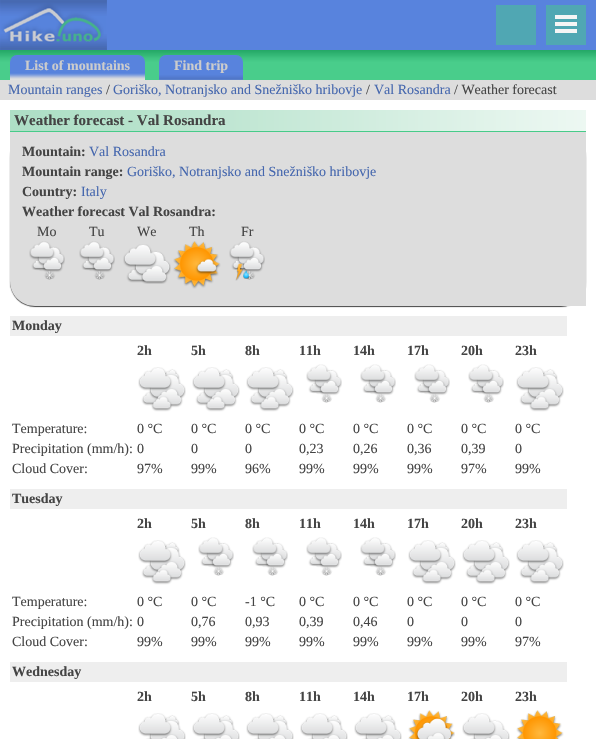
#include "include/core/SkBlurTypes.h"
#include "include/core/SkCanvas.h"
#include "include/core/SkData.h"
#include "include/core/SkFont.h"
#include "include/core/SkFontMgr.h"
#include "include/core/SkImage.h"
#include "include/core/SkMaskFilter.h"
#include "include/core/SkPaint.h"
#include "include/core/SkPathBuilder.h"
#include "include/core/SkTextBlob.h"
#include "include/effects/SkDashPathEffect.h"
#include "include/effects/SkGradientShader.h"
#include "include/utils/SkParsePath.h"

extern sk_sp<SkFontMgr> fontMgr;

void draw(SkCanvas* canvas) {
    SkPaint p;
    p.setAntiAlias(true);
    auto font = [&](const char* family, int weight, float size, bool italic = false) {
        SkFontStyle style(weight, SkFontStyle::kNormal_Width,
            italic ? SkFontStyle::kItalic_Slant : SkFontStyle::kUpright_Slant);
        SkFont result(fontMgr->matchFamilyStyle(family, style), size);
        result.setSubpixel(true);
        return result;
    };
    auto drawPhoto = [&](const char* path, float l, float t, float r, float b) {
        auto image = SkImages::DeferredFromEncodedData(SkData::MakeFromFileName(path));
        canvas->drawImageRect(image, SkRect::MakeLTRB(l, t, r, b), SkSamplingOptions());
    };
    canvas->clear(0xFF5883DD);
    drawPhoto("media/1.png", 0, 0, 107, 50);
    p.setColor(0xFF50A7B3);
    canvas->drawRect(SkRect::MakeLTRB(496, 5, 536, 45), p);
    canvas->drawRect(SkRect::MakeLTRB(546, 5, 586, 45), p);
    drawPhoto("media/2.png", 555, 15, 577, 33);
    drawPhoto("media/3.png", 0, 50, 596, 80);
    drawPhoto("media/4.png", 10, 55, 145, 80);
    auto font1 = font("Liberation Serif", 700, 14);
    p.setColor(0xFFCCCCCC);
    canvas->drawString("List of mountains", 25, 70, font1, p);
    drawPhoto("media/5.png", 159, 55, 243, 80);
    canvas->drawString("Find trip", 174, 70, font1, p);
    p.setColor(0xFFFFFFFF);
    canvas->drawRect(SkRect::MakeLTRB(0, 100, 596, 739), p);
    p.setColor(0xFFDDDDDD);
    canvas->drawRect(SkRect::MakeLTRB(0, 80, 596, 100), p);
    auto font2 = font("Liberation Serif", 400, 14);
    p.setColor(0xFF4567AE);
    canvas->drawString("Mountain ranges", 8, 94, font2, p);
    p.setColor(0xFF444444);
    canvas->drawString("/", 106, 94, font2, p);
    p.setColor(0xFF4567AE);
    canvas->drawString("Goriško, Notranjsko and Snežniško hribovje", 113, 94, font2, p);
    p.setColor(0xFF444444);
    canvas->drawString("/", 366, 94, font2, p);
    p.setColor(0xFF4567AE);
    canvas->drawString("Val Rosandra", 374, 94, font2, p);
    p.setColor(0xFF444444);
    canvas->drawString("/ Weather forecast", 454, 94, font2, p);
    drawPhoto("media/6.png", 10, 110, 586, 131);
    p.setColor(0xFF47CB89);
    canvas->drawRect(SkRect::MakeLTRB(10, 131, 586, 132), p);
    auto font3 = font("Liberation Serif", 700, 15);
    p.setColor(0xFF444444);
    canvas->drawString("Weather forecast - Val Rosandra", 14, 125, font3, p);
    p.setMaskFilter(SkMaskFilter::MakeBlur(kNormal_SkBlurStyle, 0.5f));
    canvas->drawRoundRect(SkRect::MakeLTRB(10, 133, 586, 307), 25, 25, p);
    p.setMaskFilter(nullptr);
    p.setColor(0xFFDDDDDD);
    canvas->drawPath(SkPathBuilder().moveTo(10, 132).lineTo(586, 132).lineTo(586, 306).lineTo(35, 306).cubicTo(21, 306, 10, 295, 10, 281).close().detach(), p);
    p.setColor(0xFF444444);
    canvas->drawString("Mountain:", 22, 156, font1, p);
    p.setColor(0xFF4567AE);
    canvas->drawString("Val Rosandra", 89, 156, font2, p);
    p.setColor(0xFF444444);
    canvas->drawString("Mountain range:", 22, 176, font1, p);
    p.setColor(0xFF4567AE);
    canvas->drawString("Goriško, Notranjsko and Snežniško hribovje", 127, 176, font2, p);
    p.setColor(0xFF444444);
    canvas->drawString("Country:", 22, 196, font1, p);
    p.setColor(0xFF4567AE);
    canvas->drawString("Italy", 81, 196, font2, p);
    p.setColor(0xFF444444);
    canvas->drawString("Weather forecast Val Rosandra:", 22, 216, font1, p);
    canvas->drawString("Mo", 37, 236, font2, p);
    drawPhoto("media/7.png", 29, 241, 65, 280);
    canvas->drawString("Tu", 89, 236, font2, p);
    drawPhoto("media/7.png", 79, 241, 115, 280);
    canvas->drawString("We", 137, 236, font2, p);
    drawPhoto("media/8.png", 123, 244, 171, 284);
    canvas->drawString("Th", 189, 236, font2, p);
    drawPhoto("media/9.png", 173, 241, 221, 289);
    canvas->drawString("Fr", 241, 236, font2, p);
    drawPhoto("media/10.png", 229, 241, 265, 281);
    p.setColor(0xFFEEEEEE);
    canvas->drawRect(SkRect::MakeLTRB(10, 316, 567, 336), p);
    p.setColor(0xFF444444);
    canvas->drawString("Monday", 12, 330, font1, p);
    canvas->drawString("2h", 137, 355, font1, p);
    drawPhoto("media/11.png", 138, 367, 186, 412);
    {
        const struct { const char* s; float x, y; } items[] = {
            {"Temperature:", 12, 433},
            {"0 °C", 137, 433},
            {"Precipitation (mm/h):", 12, 453},
            {"0", 137, 453},
            {"Cloud Cover:", 12, 473},
            {"97%", 137, 473},
        };
        for (auto [s, x, y] : items) {
            canvas->drawString(s, x, y, font2, p);
        }
    }
    canvas->drawString("5h", 191, 355, font1, p);
    drawPhoto("media/11.png", 192, 367, 240, 412);
    {
        const struct { const char* s; float x, y; } items[] = {
            {"0 °C", 191, 433},
            {"0", 191, 453},
            {"99%", 191, 473},
        };
        for (auto [s, x, y] : items) {
            canvas->drawString(s, x, y, font2, p);
        }
    }
    canvas->drawString("8h", 245, 355, font1, p);
    drawPhoto("media/11.png", 246, 367, 294, 412);
    {
        const struct { const char* s; float x, y; } items[] = {
            {"0 °C", 245, 433},
            {"0", 245, 453},
            {"96%", 245, 473},
        };
        for (auto [s, x, y] : items) {
            canvas->drawString(s, x, y, font2, p);
        }
    }
    canvas->drawString("11h", 299, 355, font1, p);
    drawPhoto("media/12.png", 306, 364, 342, 403);
    {
        const struct { const char* s; float x, y; } items[] = {
            {"0 °C", 299, 433},
            {"0,23", 299, 453},
            {"99%", 299, 473},
        };
        for (auto [s, x, y] : items) {
            canvas->drawString(s, x, y, font2, p);
        }
    }
    canvas->drawString("14h", 353, 355, font1, p);
    drawPhoto("media/13.png", 360, 364, 396, 403);
    {
        const struct { const char* s; float x, y; } items[] = {
            {"0 °C", 353, 433},
            {"0,26", 353, 453},
            {"99%", 353, 473},
        };
        for (auto [s, x, y] : items) {
            canvas->drawString(s, x, y, font2, p);
        }
    }
    canvas->drawString("17h", 407, 355, font1, p);
    drawPhoto("media/12.png", 414, 364, 450, 403);
    {
        const struct { const char* s; float x, y; } items[] = {
            {"0 °C", 407, 433},
            {"0,36", 407, 453},
            {"99%", 407, 473},
        };
        for (auto [s, x, y] : items) {
            canvas->drawString(s, x, y, font2, p);
        }
    }
    canvas->drawString("20h", 461, 355, font1, p);
    drawPhoto("media/13.png", 468, 364, 504, 403);
    {
        const struct { const char* s; float x, y; } items[] = {
            {"0 °C", 461, 433},
            {"0,39", 461, 453},
            {"97%", 461, 473},
        };
        for (auto [s, x, y] : items) {
            canvas->drawString(s, x, y, font2, p);
        }
    }
    canvas->drawString("23h", 515, 355, font1, p);
    drawPhoto("media/11.png", 516, 367, 564, 412);
    {
        const struct { const char* s; float x, y; } items[] = {
            {"0 °C", 515, 433},
            {"0", 515, 453},
            {"99%", 515, 473},
        };
        for (auto [s, x, y] : items) {
            canvas->drawString(s, x, y, font2, p);
        }
    }
    p.setColor(0xFFEEEEEE);
    canvas->drawRect(SkRect::MakeLTRB(10, 489, 567, 509), p);
    p.setColor(0xFF444444);
    canvas->drawString("Tuesday", 12, 503, font1, p);
    canvas->drawString("2h", 137, 528, font1, p);
    drawPhoto("media/14.png", 138, 540, 186, 585);
    {
        const struct { const char* s; float x, y; } items[] = {
            {"Temperature:", 12, 606},
            {"0 °C", 137, 606},
            {"Precipitation (mm/h):", 12, 626},
            {"0", 137, 626},
            {"Cloud Cover:", 12, 646},
            {"99%", 137, 646},
        };
        for (auto [s, x, y] : items) {
            canvas->drawString(s, x, y, font2, p);
        }
    }
    canvas->drawString("5h", 191, 528, font1, p);
    drawPhoto("media/15.png", 198, 537, 234, 576);
    {
        const struct { const char* s; float x, y; } items[] = {
            {"0 °C", 191, 606},
            {"0,76", 191, 626},
            {"99%", 191, 646},
        };
        for (auto [s, x, y] : items) {
            canvas->drawString(s, x, y, font2, p);
        }
    }
    canvas->drawString("8h", 245, 528, font1, p);
    drawPhoto("media/15.png", 252, 537, 288, 576);
    {
        const struct { const char* s; float x, y; } items[] = {
            {"-1 °C", 245, 606},
            {"0,93", 245, 626},
            {"99%", 245, 646},
        };
        for (auto [s, x, y] : items) {
            canvas->drawString(s, x, y, font2, p);
        }
    }
    canvas->drawString("11h", 299, 528, font1, p);
    drawPhoto("media/15.png", 306, 537, 342, 576);
    {
        const struct { const char* s; float x, y; } items[] = {
            {"0 °C", 299, 606},
            {"0,39", 299, 626},
            {"99%", 299, 646},
        };
        for (auto [s, x, y] : items) {
            canvas->drawString(s, x, y, font2, p);
        }
    }
    canvas->drawString("14h", 353, 528, font1, p);
    drawPhoto("media/16.png", 360, 537, 396, 576);
    {
        const struct { const char* s; float x, y; } items[] = {
            {"0 °C", 353, 606},
            {"0,46", 353, 626},
            {"99%", 353, 646},
        };
        for (auto [s, x, y] : items) {
            canvas->drawString(s, x, y, font2, p);
        }
    }
    canvas->drawString("17h", 407, 528, font1, p);
    drawPhoto("media/14.png", 408, 540, 456, 585);
    {
        const struct { const char* s; float x, y; } items[] = {
            {"0 °C", 407, 606},
            {"0", 407, 626},
            {"99%", 407, 646},
        };
        for (auto [s, x, y] : items) {
            canvas->drawString(s, x, y, font2, p);
        }
    }
    canvas->drawString("20h", 461, 528, font1, p);
    drawPhoto("media/17.png", 462, 540, 510, 585);
    {
        const struct { const char* s; float x, y; } items[] = {
            {"0 °C", 461, 606},
            {"0", 461, 626},
            {"99%", 461, 646},
        };
        for (auto [s, x, y] : items) {
            canvas->drawString(s, x, y, font2, p);
        }
    }
    canvas->drawString("23h", 515, 528, font1, p);
    drawPhoto("media/14.png", 516, 540, 564, 585);
    {
        const struct { const char* s; float x, y; } items[] = {
            {"0 °C", 515, 606},
            {"0", 515, 626},
            {"97%", 515, 646},
        };
        for (auto [s, x, y] : items) {
            canvas->drawString(s, x, y, font2, p);
        }
    }
    p.setColor(0xFFEEEEEE);
    canvas->drawRect(SkRect::MakeLTRB(10, 662, 567, 682), p);
    p.setColor(0xFF444444);
    canvas->drawString("Wednesday", 12, 676, font1, p);
    canvas->drawString("2h", 137, 701, font1, p);
    drawPhoto("media/18.png", 138, 713, 186, 739);
    canvas->drawString("5h", 191, 701, font1, p);
    drawPhoto("media/18.png", 192, 713, 240, 739);
    canvas->drawString("8h", 245, 701, font1, p);
    drawPhoto("media/18.png", 246, 713, 294, 739);
    canvas->drawString("11h", 299, 701, font1, p);
    drawPhoto("media/18.png", 300, 713, 348, 739);
    canvas->drawString("14h", 353, 701, font1, p);
    drawPhoto("media/19.png", 354, 713, 402, 739);
    canvas->drawString("17h", 407, 701, font1, p);
    drawPhoto("media/20.png", 408, 710, 455, 739);
    canvas->drawString("20h", 461, 701, font1, p);
    drawPhoto("media/21.png", 462, 713, 510, 739);
    canvas->drawString("23h", 515, 701, font1, p);
    drawPhoto("media/22.png", 516, 710, 564, 739);
}
